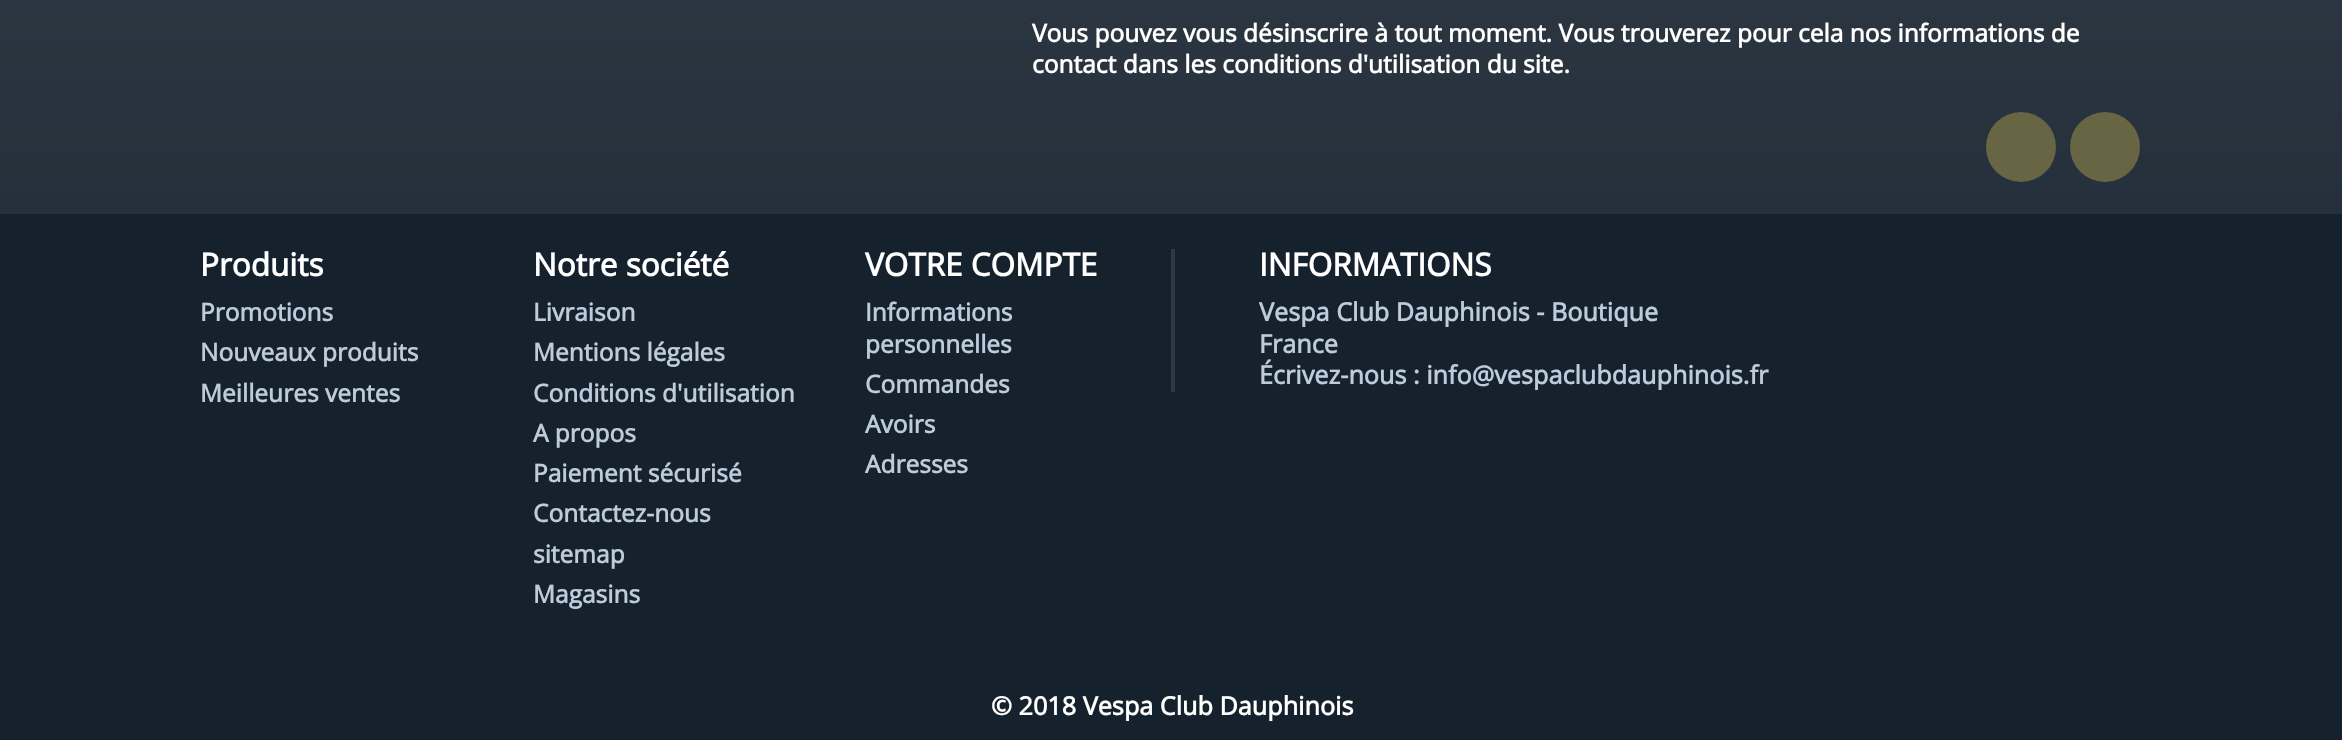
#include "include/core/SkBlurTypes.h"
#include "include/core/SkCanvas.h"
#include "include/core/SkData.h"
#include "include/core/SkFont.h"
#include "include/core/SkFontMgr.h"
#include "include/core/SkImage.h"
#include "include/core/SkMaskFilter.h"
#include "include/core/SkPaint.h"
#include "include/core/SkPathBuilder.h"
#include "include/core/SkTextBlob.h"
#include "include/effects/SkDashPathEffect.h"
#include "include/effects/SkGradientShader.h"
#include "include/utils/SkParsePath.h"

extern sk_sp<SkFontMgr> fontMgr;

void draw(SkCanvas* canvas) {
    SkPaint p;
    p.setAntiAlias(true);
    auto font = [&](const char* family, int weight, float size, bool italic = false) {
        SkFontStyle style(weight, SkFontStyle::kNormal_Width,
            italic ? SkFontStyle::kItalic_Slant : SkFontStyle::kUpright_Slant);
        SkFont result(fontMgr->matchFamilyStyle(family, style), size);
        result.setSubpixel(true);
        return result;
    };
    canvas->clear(0xFFFFFFFF);
    {
        const SkColor colors[] = {0xFF2E3944, 0xFF15212D};
        const float stops[] = {0, 1};
        const SkPoint ends[] = {{1172, -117}, {1172, 740}};
        p.setShader(SkGradientShader::MakeLinear(ends, colors, stops, 2, SkTileMode::kClamp));
        p.setAlpha(255);
    }
    canvas->drawRect(SkRect::MakeLTRB(0, 0, 2342, 214), p);
    auto font1 = font("Open Sans", 700, 24.5f);
    p.setShader(nullptr);
    p.setColor(0xFFFFFFFF);
    canvas->drawString("Vous pouvez vous désinscrire à tout moment. Vous trouverez pour cela nos informations de", 1032, 42, font1, p);
    canvas->drawString("contact dans les conditions d'utilisation du site.", 1032, 73, font1, p);
    p.setColor(0xFF676543);
    canvas->drawCircle(2021, 147, 35, p);
    canvas->drawCircle(2105, 147, 35, p);
    p.setColor(0xFF15212D);
    canvas->drawRect(SkRect::MakeLTRB(0, 214, 2342, 740), p);
    auto font2 = font("Open Sans", 700, 31.5f);
    p.setColor(0xFFFFFFFF);
    canvas->drawString("Produits", 200, 276, font2, p);
    p.setColor(0xFFBECBDB);
    {
        const struct { const char* s; float x, y; } items[] = {
            {"Promotions", 200, 321},
            {"Nouveaux produits", 200, 361},
            {"Meilleures ventes", 200, 402},
        };
        for (auto [s, x, y] : items) {
            canvas->drawString(s, x, y, font1, p);
        }
    }
    p.setColor(0xFFFFFFFF);
    canvas->drawString("Notre société", 533, 276, font2, p);
    p.setColor(0xFFBECBDB);
    {
        const struct { const char* s; float x, y; } items[] = {
            {"Livraison", 533, 321},
            {"Mentions légales", 533, 361},
            {"Conditions d'utilisation", 533, 402},
            {"A propos", 533, 442},
            {"Paiement sécurisé", 533, 482},
            {"Contactez-nous", 533, 522},
            {"sitemap", 533, 563},
            {"Magasins", 533, 603},
        };
        for (auto [s, x, y] : items) {
            canvas->drawString(s, x, y, font1, p);
        }
    }
    p.setColor(0xFFFFFFFF);
    canvas->drawString("VOTRE COMPTE", 865, 276, font2, p);
    p.setColor(0xFFBECBDB);
    {
        const struct { const char* s; float x, y; } items[] = {
            {"Informations", 865, 321},
            {"personnelles", 865, 353},
            {"Commandes", 865, 393},
            {"Avoirs", 865, 433},
            {"Adresses", 865, 473},
        };
        for (auto [s, x, y] : items) {
            canvas->drawString(s, x, y, font1, p);
        }
    }
    p.setColor(0xFF2E3944);
    canvas->drawRect(SkRect::MakeLTRB(1171, 249, 1175, 392), p);
    p.setColor(0xFFFFFFFF);
    canvas->drawString("INFORMATIONS", 1259, 276, font2, p);
    auto font3 = font("Open Sans", 700, 25.2f);
    p.setColor(0xFFBECBDB);
    {
        const struct { const char* s; float x, y; } items[] = {
            {"Vespa Club Dauphinois - Boutique", 1259, 321},
            {"France", 1259, 353},
            {"Écrivez-nous : info@vespaclubdauphinois.fr", 1259, 384},
        };
        for (auto [s, x, y] : items) {
            canvas->drawString(s, x, y, font3, p);
        }
    }
    p.setColor(0xFFFFFFFF);
    canvas->drawString("© 2018 Vespa Club Dauphinois", 991, 715, font3, p);
}
